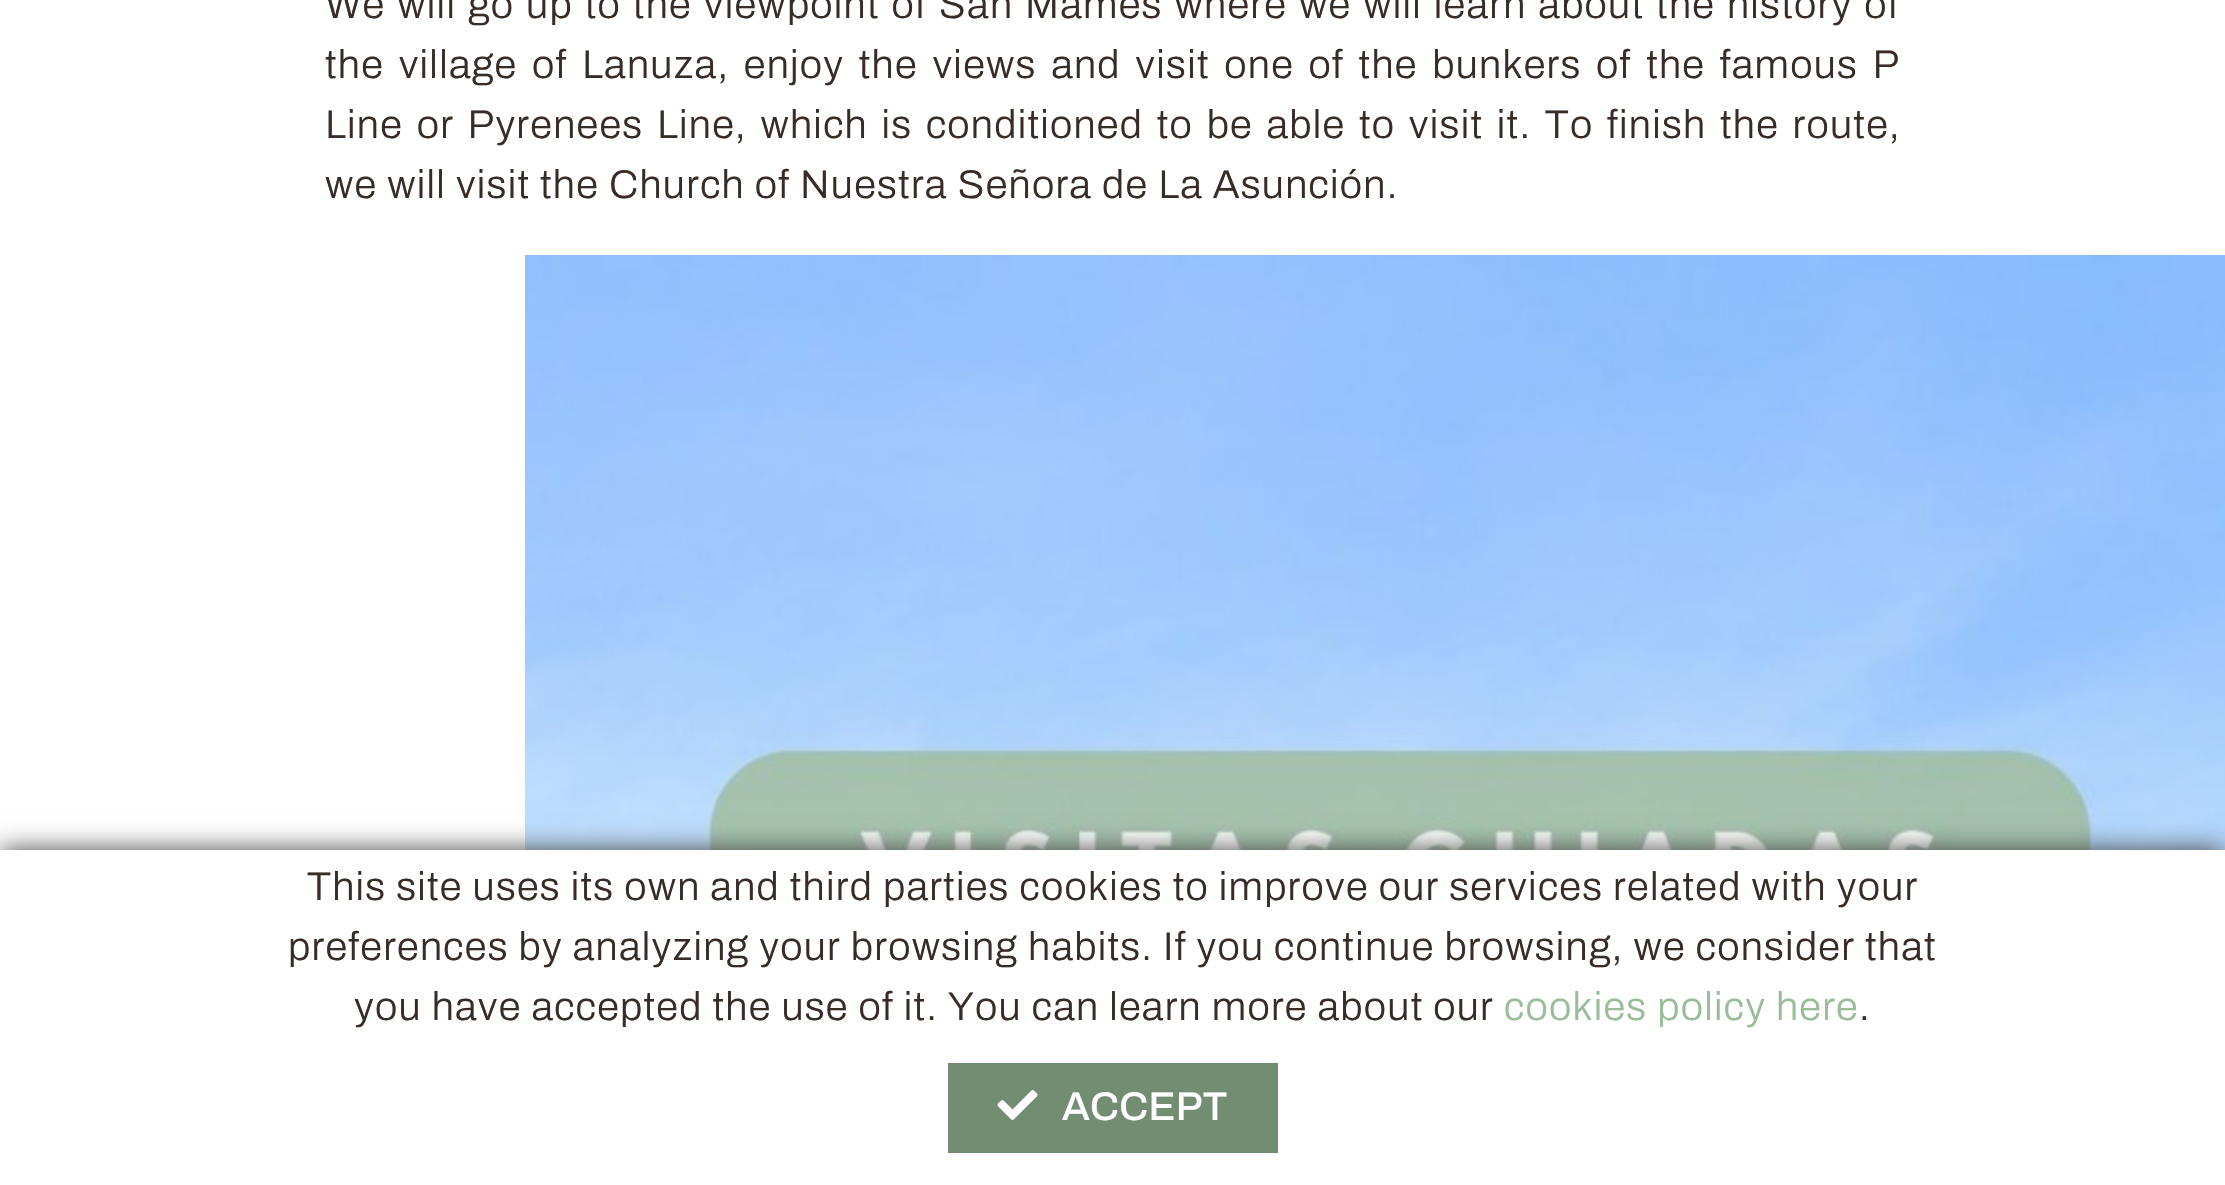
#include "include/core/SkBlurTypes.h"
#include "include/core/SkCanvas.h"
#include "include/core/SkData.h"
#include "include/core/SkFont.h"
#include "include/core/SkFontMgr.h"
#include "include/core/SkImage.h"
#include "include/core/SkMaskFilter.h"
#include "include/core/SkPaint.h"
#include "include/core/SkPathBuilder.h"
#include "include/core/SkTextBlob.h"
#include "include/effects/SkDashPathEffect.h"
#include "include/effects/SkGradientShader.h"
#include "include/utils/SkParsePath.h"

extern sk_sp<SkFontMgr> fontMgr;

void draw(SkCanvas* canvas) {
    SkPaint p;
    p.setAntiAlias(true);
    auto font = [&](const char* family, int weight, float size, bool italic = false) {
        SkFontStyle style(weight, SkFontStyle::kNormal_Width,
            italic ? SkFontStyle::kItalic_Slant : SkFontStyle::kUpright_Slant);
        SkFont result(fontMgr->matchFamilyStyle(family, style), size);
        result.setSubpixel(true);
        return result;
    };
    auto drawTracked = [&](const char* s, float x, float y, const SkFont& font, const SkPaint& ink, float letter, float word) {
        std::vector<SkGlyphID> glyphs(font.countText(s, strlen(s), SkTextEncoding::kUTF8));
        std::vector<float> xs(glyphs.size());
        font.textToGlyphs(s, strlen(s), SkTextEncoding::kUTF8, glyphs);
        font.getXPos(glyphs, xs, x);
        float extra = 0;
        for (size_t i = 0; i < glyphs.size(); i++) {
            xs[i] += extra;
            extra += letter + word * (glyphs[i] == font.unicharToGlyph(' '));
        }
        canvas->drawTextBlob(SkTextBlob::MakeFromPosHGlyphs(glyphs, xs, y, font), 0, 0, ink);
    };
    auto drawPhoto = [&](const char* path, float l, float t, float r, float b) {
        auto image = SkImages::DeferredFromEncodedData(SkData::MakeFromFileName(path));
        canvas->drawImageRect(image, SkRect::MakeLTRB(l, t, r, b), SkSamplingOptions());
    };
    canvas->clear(0xFFFFFFFF);
    auto font1 = font("Archivo", 300, 40);
    p.setColor(0xFF382C26);
    drawTracked("We will go up to the viewpoint of San Mamés where we will learn about the history of", 325, 18, font1, p, 1.25f, 2);
    drawTracked("the village of Lanuza, enjoy the views and visit one of the bunkers of the famous P", 325, 78, font1, p, 1.25f, 4.75f);
    drawTracked("Line or Pyrenees Line, which is conditioned to be able to visit it. To finish the route,", 325, 138, font1, p, 1.25f, 3.75f);
    drawTracked("we will visit the Church of Nuestra Señora de La Asunción.", 325, 198, font1, p, 1.25f, 0);
    drawPhoto("media/1.png", 525, 255, 2225, 850);
    p.setColor(0xFF444444);
    p.setMaskFilter(SkMaskFilter::MakeBlur(kNormal_SkBlurStyle, 12.5f));
    canvas->drawRect(SkRect::MakeLTRB(0, 850, 2225, 1185), p);
    p.setMaskFilter(nullptr);
    p.setColor(0xFFFFFFFF);
    canvas->drawRect(SkRect::MakeLTRB(0, 850, 2225, 1185), p);
    p.setColor(0xFF382C26);
    {
        const struct { const char* s; float x, y; } items[] = {
            {"This site uses its own and third parties cookies to improve our services related with your", 307, 900},
            {"preferences by analyzing your browsing habits. If you continue browsing, we consider that", 288, 960},
            {"you have accepted the use of it. You can learn more about our", 354, 1020},
        };
        for (auto [s, x, y] : items) {
            drawTracked(s, x, y, font1, p, 1.25f, 0);
        }
    }
    p.setColor(0xFF99BD98);
    drawTracked("cookies policy here", 1504, 1020, font1, p, 1.25f, 0);
    p.setColor(0xFF382C26);
    drawTracked(".", 1859, 1020, font1, p, 1.25f, 0);
    p.setColor(0xFF728D71);
    canvas->drawRect(SkRect::MakeLTRB(948, 1063, 1278, 1153), p);
    drawPhoto("media/2.png", 997, 1090, 1038, 1120);
    auto font2 = font("Archivo", 500, 40);
    p.setColor(0xFFFFFFFF);
    drawTracked("ACCEPT", 1062, 1120, font2, p, 0.25f, 0);
}
